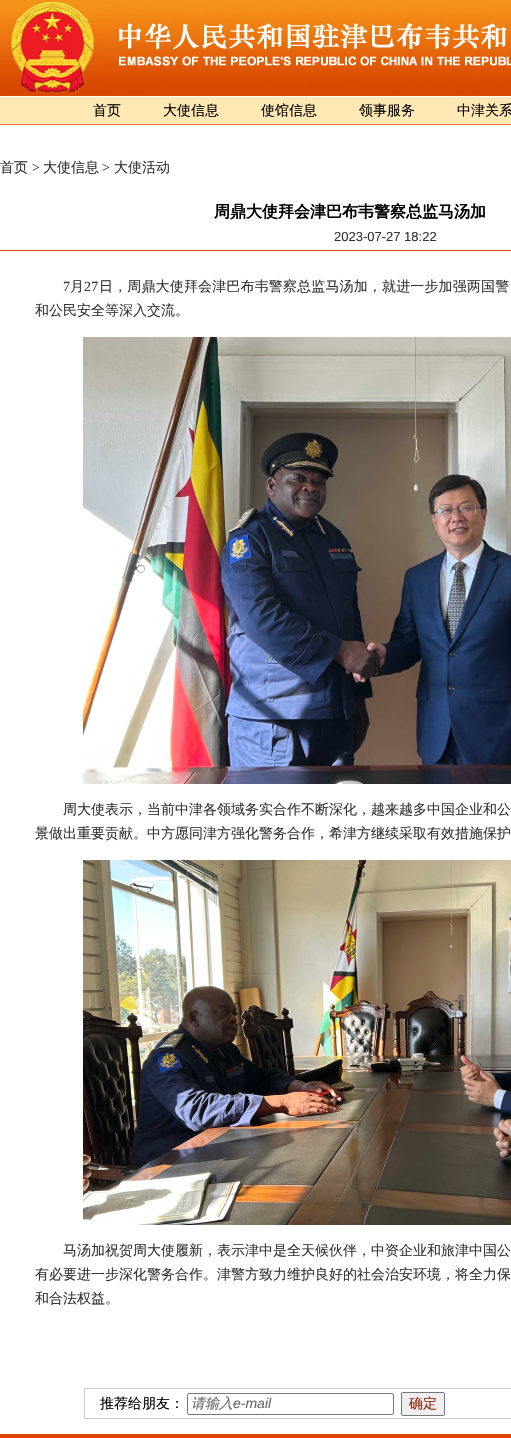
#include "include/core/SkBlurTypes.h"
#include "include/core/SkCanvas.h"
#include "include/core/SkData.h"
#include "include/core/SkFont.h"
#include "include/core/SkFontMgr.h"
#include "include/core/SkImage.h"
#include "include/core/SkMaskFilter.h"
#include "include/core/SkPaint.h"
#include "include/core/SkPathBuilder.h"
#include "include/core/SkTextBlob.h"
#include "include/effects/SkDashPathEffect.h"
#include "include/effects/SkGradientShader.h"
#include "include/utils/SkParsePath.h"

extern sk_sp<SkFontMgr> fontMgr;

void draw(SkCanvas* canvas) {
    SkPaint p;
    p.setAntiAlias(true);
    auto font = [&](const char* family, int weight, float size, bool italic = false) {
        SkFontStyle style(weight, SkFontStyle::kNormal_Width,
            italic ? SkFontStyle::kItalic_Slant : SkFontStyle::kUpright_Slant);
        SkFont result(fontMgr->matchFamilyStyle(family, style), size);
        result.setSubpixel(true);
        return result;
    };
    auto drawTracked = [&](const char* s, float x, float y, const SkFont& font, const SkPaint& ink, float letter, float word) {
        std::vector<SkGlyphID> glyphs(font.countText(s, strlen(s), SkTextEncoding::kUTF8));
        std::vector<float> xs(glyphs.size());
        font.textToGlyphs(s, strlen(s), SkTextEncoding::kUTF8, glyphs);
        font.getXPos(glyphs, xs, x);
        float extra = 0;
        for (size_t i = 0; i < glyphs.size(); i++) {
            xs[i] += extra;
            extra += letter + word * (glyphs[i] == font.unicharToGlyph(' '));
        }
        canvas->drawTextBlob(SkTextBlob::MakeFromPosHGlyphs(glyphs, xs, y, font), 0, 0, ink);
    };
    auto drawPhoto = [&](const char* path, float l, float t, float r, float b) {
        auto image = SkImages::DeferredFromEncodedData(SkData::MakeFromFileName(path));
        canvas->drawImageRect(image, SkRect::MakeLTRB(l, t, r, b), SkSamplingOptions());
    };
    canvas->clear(0xFFFFFFFF);
    drawPhoto("media/1.png", 0, 0, 511, 96);
    p.setColor(0xFFFFE8B4);
    canvas->drawRect(SkRect::MakeLTRB(0, 97, 511, 124), p);
    p.setColor(0xFFE1723D);
    canvas->drawRect(SkRect::MakeLTRB(0, 124, 511, 125), p);
    auto font1 = font("WenQuanYi Zen Hei", 500, 14);
    p.setColor(0xFF000000);
    {
        const struct { const char* s; float x, y; } items[] = {
            {"首页", 93, 115},
            {"大使信息", 163, 115},
            {"使馆信息", 261, 115},
            {"领事服务", 359, 115},
            {"中津关系", 457, 115},
        };
        for (auto [s, x, y] : items) {
            canvas->drawString(s, x, y, font1, p);
        }
    }
    p.setColor(0xFF333333);
    canvas->drawString("首页", 0, 172, font1, p);
    auto font2 = font("Liberation Serif", 400, 14);
    canvas->drawString(">", 32, 172, font2, p);
    canvas->drawString("大使信息", 43, 172, font1, p);
    canvas->drawString(">", 102, 172, font2, p);
    canvas->drawString("大使活动", 114, 172, font1, p);
    auto font3 = font("WenQuanYi Zen Hei", 700, 16);
    p.setColor(0xFF000000);
    canvas->drawString("周鼎大使拜会津巴布韦警察总监马汤加", 214, 217, font3, p);
    auto font4 = font("Liberation Sans", 400, 13);
    p.setColor(0xFF333333);
    canvas->drawString("2023-07-27 18:22", 334, 241, font4, p);
    p.setColor(0xFFDA4701);
    canvas->drawRect(SkRect::MakeLTRB(0, 250, 511, 251), p);
    p.setColor(0xFF333333);
    drawTracked("7", 63, 291, font2, p, 0.15f, 0);
    drawTracked("月", 70, 291, font1, p, 0.15f, 0);
    drawTracked("27", 84, 291, font2, p, 0.15f, 0);
    drawTracked("日，周鼎大使拜会津巴布韦警察总监马汤加，就进一步加强两国警", 99, 291, font1, p, 0.15f, 0);
    canvas->drawString("和公民安全等深入交流。", 35, 315, font1, p);
    drawPhoto("media/2.png", 83, 337, 511, 784);
    canvas->drawString("周大使表示，当前中津各领域务实合作不断深化，越来越多中国企业和公", 63, 814, font1, p);
    canvas->drawString("景做出重要贡献。中方愿同津方强化警务合作，希津方继续采取有效措施保护", 35, 838, font1, p);
    drawPhoto("media/3.png", 83, 860, 511, 1225);
    {
        const struct { const char* s; float x, y; } items[] = {
            {"马汤加祝贺周大使履新，表示津中是全天候伙伴，中资企业和旅津中国公", 63, 1255},
            {"有必要进一步深化警务合作。津警方致力维护良好的社会治安环境，将全力保", 35, 1279},
            {"和合法权益。", 35, 1303},
        };
        for (auto [s, x, y] : items) {
            canvas->drawString(s, x, y, font1, p);
        }
    }
    p.setStyle(SkPaint::kStroke_Style);
    p.setStrokeWidth(1);
    p.setColor(0xFFCCCCCC);
    canvas->drawRect(SkRect::MakeLTRB(84.5f, 1388.5f, 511.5f, 1418.5f), p);
    p.setStyle(SkPaint::kFill_Style);
    p.setColor(0xFF000000);
    canvas->drawString("推荐给朋友：", 100, 1408, font1, p);
    p.setStyle(SkPaint::kStroke_Style);
    p.setColor(0xFF767676);
    canvas->drawRoundRect(SkRect::MakeLTRB(187.5f, 1393.5f, 393.5f, 1414.5f), 1.5f, 1.5f, p);
    auto font5 = font("WenQuanYi Zen Hei", 500, 14, true);
    p.setStyle(SkPaint::kFill_Style);
    p.setColor(0xFF666666);
    canvas->drawString("请输入", 191, 1408, font5, p);
    auto font6 = font("Liberation Sans", 400, 14, true);
    canvas->drawString("e-mail", 233, 1408, font6, p);
    p.setColor(0xFFEFEFEF);
    canvas->drawRoundRect(SkRect::MakeLTRB(401.5f, 1392.5f, 444.5f, 1415.5f), 1.5f, 1.5f, p);
    p.setStyle(SkPaint::kStroke_Style);
    p.setColor(0xFF767676);
    canvas->drawRoundRect(SkRect::MakeLTRB(401.5f, 1392.5f, 444.5f, 1415.5f), 1.5f, 1.5f, p);
    p.setStyle(SkPaint::kFill_Style);
    p.setColor(0xFF9A230E);
    canvas->drawString("确定", 409, 1408, font1, p);
    p.setColor(0xFFDA4701);
    canvas->drawRect(SkRect::MakeLTRB(0, 1434, 511, 1438), p);
}
